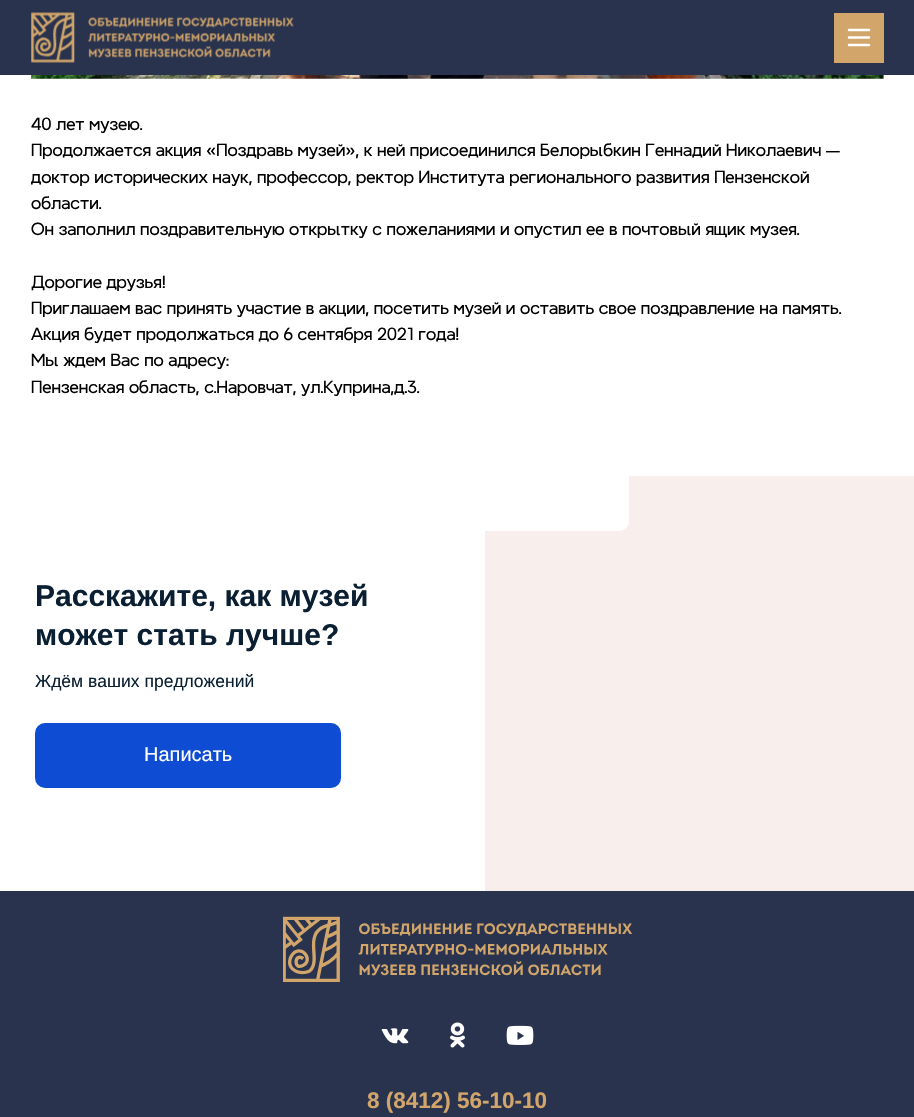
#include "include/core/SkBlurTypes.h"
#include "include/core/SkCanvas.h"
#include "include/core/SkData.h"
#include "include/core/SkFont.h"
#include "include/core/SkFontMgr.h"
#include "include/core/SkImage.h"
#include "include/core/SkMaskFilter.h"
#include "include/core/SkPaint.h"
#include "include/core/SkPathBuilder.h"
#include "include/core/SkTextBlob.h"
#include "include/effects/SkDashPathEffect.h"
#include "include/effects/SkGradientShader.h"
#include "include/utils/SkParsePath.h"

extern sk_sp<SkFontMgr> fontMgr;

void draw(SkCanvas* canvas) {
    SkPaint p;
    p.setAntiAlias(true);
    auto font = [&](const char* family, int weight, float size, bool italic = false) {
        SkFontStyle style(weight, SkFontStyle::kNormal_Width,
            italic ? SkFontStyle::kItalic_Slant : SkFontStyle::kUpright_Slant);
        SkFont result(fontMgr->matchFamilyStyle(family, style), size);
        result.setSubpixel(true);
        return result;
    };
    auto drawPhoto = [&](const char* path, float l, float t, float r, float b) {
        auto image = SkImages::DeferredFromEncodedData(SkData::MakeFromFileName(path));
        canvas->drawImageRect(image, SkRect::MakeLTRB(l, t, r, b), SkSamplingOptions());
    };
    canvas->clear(0xFFFFFFFF);
    p.setColor(0xFF29334E);
    canvas->drawRect(SkRect::MakeLTRB(0, 0, 914, 75), p);
    drawPhoto("media/1.png", 31, 12, 294, 63);
    p.setColor(0xFFD2A66A);
    canvas->drawRect(SkRect::MakeLTRB(834, 13, 884, 63), p);
    p.setStyle(SkPaint::kStroke_Style);
    p.setStrokeWidth(2.5f);
    p.setStrokeCap(SkPaint::kRound_Cap);
    p.setStrokeJoin(SkPaint::kRound_Join);
    p.setColor(0xFFFFFFFF);
    canvas->drawPath(SkPathBuilder().moveTo(849, 37.5f).lineTo(869, 37.5f).moveTo(849, 30).lineTo(869, 30).moveTo(849, 45).lineTo(869, 45).detach(), p);
    drawPhoto("media/2.png", 31, 75, 884, 79);
    auto font1 = font("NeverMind", 400, 17.5f);
    p.setStyle(SkPaint::kFill_Style);
    p.setColor(0xFF000000);
    {
        const struct { const char* s; float x, y; } items[] = {
            {"40 лет музею.", 31, 130},
            {"Продолжается акция «Поздравь музей», к ней присоединился Белорыбкин Геннадий Николаевич —", 31, 156},
            {"доктор исторических наук, профессор, ректор Института регионального развития Пензенской", 31, 183},
            {"области.", 31, 209},
            {"Он заполнил поздравительную открытку с пожеланиями и опустил ее в почтовый ящик музея.", 31, 235},
            {"Дорогие друзья!", 31, 288},
            {"Приглашаем вас принять участие в акции, посетить музей и оставить свое поздравление на память.", 31, 314},
            {"Акция будет продолжаться до 6 сентября 2021 года!", 31, 340},
            {"Мы ждем Вас по адресу:", 31, 366},
            {"Пензенская область, с.Наровчат, ул.Куприна,д.3.", 31, 393},
        };
        for (auto [s, x, y] : items) {
            canvas->drawString(s, x, y, font1, p);
        }
    }
    auto font2 = font("Liberation Sans", 700, 30);
    p.setColor(0xFF0B1F33);
    canvas->drawString("Расскажите, как музей", 35, 606, font2, p);
    canvas->drawString("может стать лучше?", 35, 645, font2, p);
    auto font3 = font("Liberation Sans", 400, 17.5f);
    canvas->drawString("Ждём ваших предложений", 35, 687, font3, p);
    p.setColor(0xFF0D4CD3);
    canvas->drawRoundRect(SkRect::MakeLTRB(35, 723, 341, 788), 10, 10, p);
    auto font4 = font("Liberation Sans", 400, 20);
    p.setColor(0xFFFFFFFF);
    canvas->drawString("Написать", 144, 761, font4, p);
    p.setColor(0xFFF8EFEC);
    canvas->drawRect(SkRect::MakeLTRB(485, 476, 914, 891), p);
    p.setColor(0xFFFFFFFF);
    canvas->drawPath(SkPathBuilder().moveTo(485, 476).lineTo(629, 476).lineTo(629, 521).cubicTo(629, 526.5f, 624.5f, 531, 619, 531).lineTo(485, 531).close().detach(), p);
    p.setColor(0xFF29334E);
    canvas->drawRect(SkRect::MakeLTRB(0, 891, 914, 1117), p);
    drawPhoto("media/3.png", 283, 916, 632, 982);
    drawPhoto("media/4.png", 381, 1028, 409, 1044);
    drawPhoto("media/5.png", 450, 1022, 465, 1048);
    drawPhoto("media/6.png", 506, 1025, 534, 1045);
    auto font5 = font("Liberation Sans", 700, 22.5f);
    p.setColor(0xFFD2A66A);
    canvas->drawString("8 (8412) 56-10-10", 367, 1108, font5, p);
}
